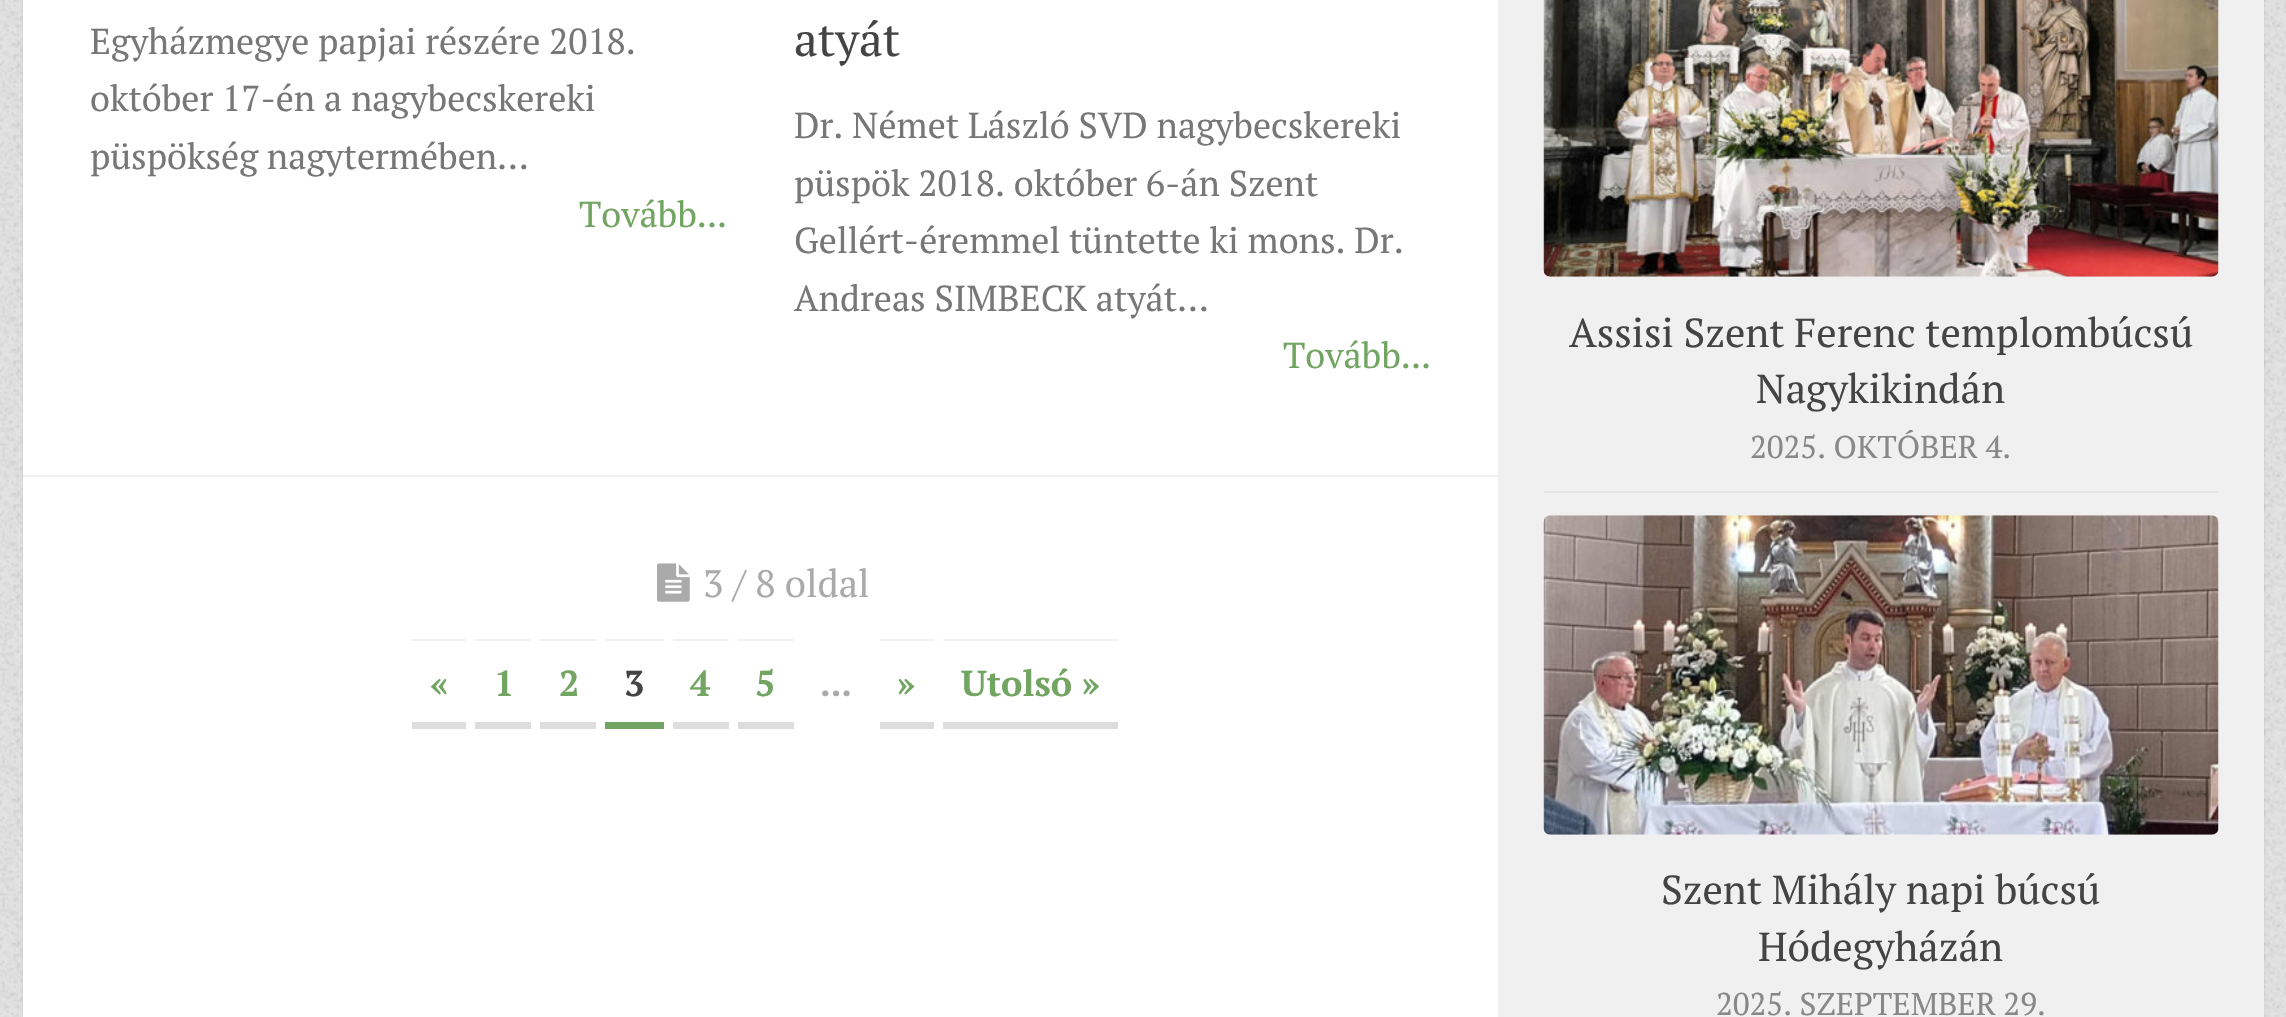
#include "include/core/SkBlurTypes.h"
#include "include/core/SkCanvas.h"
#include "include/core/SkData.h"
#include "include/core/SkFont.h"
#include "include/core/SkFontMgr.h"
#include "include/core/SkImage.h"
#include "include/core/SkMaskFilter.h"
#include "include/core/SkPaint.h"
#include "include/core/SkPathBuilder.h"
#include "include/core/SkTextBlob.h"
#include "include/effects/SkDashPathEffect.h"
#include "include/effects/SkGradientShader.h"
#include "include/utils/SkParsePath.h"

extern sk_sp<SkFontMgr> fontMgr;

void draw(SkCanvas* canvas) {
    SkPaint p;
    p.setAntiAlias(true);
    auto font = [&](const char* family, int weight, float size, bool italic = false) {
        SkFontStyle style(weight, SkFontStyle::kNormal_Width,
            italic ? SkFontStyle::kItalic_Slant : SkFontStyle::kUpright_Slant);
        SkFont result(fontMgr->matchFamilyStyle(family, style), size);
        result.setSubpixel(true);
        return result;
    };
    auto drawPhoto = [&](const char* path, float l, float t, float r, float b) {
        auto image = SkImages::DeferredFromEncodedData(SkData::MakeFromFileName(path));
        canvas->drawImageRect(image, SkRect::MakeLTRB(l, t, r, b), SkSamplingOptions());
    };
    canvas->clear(0xFFFFFFFF);
    drawPhoto("media/1.png", 0, 0, 2286, 1017);
    p.setColor(0x1A000000);
    p.setMaskFilter(SkMaskFilter::MakeBlur(kNormal_SkBlurStyle, 1));
    canvas->drawRect(SkRect::MakeLTRB(23, -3, 2264, 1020), p);
    p.setMaskFilter(nullptr);
    {
        const struct { float l, t, r, b; SkColor color; } items[] = {
            {23, 0, 1498, 1017, 0xFFFFFFFF},
            {1498, 0, 2264, 1017, 0xFFF0F0F0},
            {23, 475, 1499, 477, 0xFFEEEEEE},
        };
        for (auto [l, t, r, b, color] : items) {
            p.setColor(color);
            canvas->drawRect(SkRect::MakeLTRB(l, t, r, b), p);
        }
    }
    auto font1 = font("PT Serif", 400, 36);
    p.setColor(0xFF777777);
    {
        const struct { const char* s; float x, y; } items[] = {
            {"Egyházmegye papjai részére 2018.", 90, 54},
            {"október 17-én a nagybecskereki", 90, 111},
            {"püspökség nagytermében…", 90, 169},
        };
        for (auto [s, x, y] : items) {
            canvas->drawString(s, x, y, font1, p);
        }
    }
    p.setColor(0xFF73A562);
    canvas->drawString("Tovább...", 579, 227, font1, p);
    auto font2 = font("PT Serif", 400, 47);
    p.setColor(0xFF444444);
    canvas->drawString("atyát", 794, 56, font2, p);
    p.setColor(0xFF777777);
    {
        const struct { const char* s; float x, y; } items[] = {
            {"Dr. Német László SVD nagybecskereki", 794, 138},
            {"püspök 2018. október 6-án Szent", 794, 196},
            {"Gellért-éremmel tüntette ki mons. Dr.", 794, 253},
            {"Andreas SIMBECK atyát…", 794, 311},
        };
        for (auto [s, x, y] : items) {
            canvas->drawString(s, x, y, font1, p);
        }
    }
    p.setColor(0xFF73A562);
    canvas->drawString("Tovább...", 1283, 368, font1, p);
    drawPhoto("media/2.png", 657, 563, 690, 602);
    auto font3 = font("PT Serif", 400, 38.25f);
    p.setColor(0xFFAAAAAA);
    canvas->drawString("3 / 8 oldal", 703, 597, font3, p);
    auto font4 = font("PT Serif", 700, 36);
    p.setColor(0xFF73A562);
    canvas->drawString("«", 430, 696, font4, p);
    p.setColor(0xFFF1F1F1);
    canvas->drawRect(SkRect::MakeLTRB(412, 639, 466, 641), p);
    p.setColor(0xFFDDDDDD);
    canvas->drawRect(SkRect::MakeLTRB(412, 722, 466, 729), p);
    p.setColor(0xFF73A562);
    canvas->drawString("1", 494, 696, font4, p);
    p.setColor(0xFFF1F1F1);
    canvas->drawRect(SkRect::MakeLTRB(475, 639, 531, 641), p);
    p.setColor(0xFFDDDDDD);
    canvas->drawRect(SkRect::MakeLTRB(475, 722, 531, 729), p);
    p.setColor(0xFF73A562);
    canvas->drawString("2", 559, 696, font4, p);
    p.setColor(0xFFF1F1F1);
    canvas->drawRect(SkRect::MakeLTRB(540, 639, 596, 641), p);
    p.setColor(0xFFDDDDDD);
    canvas->drawRect(SkRect::MakeLTRB(540, 722, 596, 729), p);
    p.setColor(0xFF444444);
    canvas->drawString("3", 624, 696, font4, p);
    p.setColor(0xFFF1F1F1);
    canvas->drawRect(SkRect::MakeLTRB(605, 639, 664, 641), p);
    p.setColor(0xFF73A562);
    canvas->drawRect(SkRect::MakeLTRB(605, 722, 664, 729), p);
    canvas->drawString("4", 690, 696, font4, p);
    p.setColor(0xFFF1F1F1);
    canvas->drawRect(SkRect::MakeLTRB(673, 639, 729, 641), p);
    p.setColor(0xFFDDDDDD);
    canvas->drawRect(SkRect::MakeLTRB(673, 722, 729, 729), p);
    p.setColor(0xFF73A562);
    canvas->drawString("5", 755, 696, font4, p);
    p.setColor(0xFFF1F1F1);
    canvas->drawRect(SkRect::MakeLTRB(738, 639, 794, 641), p);
    p.setColor(0xFFDDDDDD);
    canvas->drawRect(SkRect::MakeLTRB(738, 722, 794, 729), p);
    p.setColor(0xFFAAAAAA);
    canvas->drawString("...", 820, 696, font4, p);
    p.setColor(0xFF73A562);
    canvas->drawString("»", 897, 696, font4, p);
    p.setColor(0xFFF1F1F1);
    canvas->drawRect(SkRect::MakeLTRB(880, 639, 934, 641), p);
    p.setColor(0xFFDDDDDD);
    canvas->drawRect(SkRect::MakeLTRB(880, 722, 934, 729), p);
    p.setColor(0xFF73A562);
    canvas->drawString("Utolsó »", 961, 696, font4, p);
    {
        const struct { float l, t, r, b; SkColor color; } items[] = {
            {943, 639, 1118, 641, 0xFFF1F1F1},
            {943, 722, 1118, 729, 0xFFDDDDDD},
            {1544, 491, 2219, 493, 0xFFE4E4E4},
        };
        for (auto [l, t, r, b, color] : items) {
            p.setColor(color);
            canvas->drawRect(SkRect::MakeLTRB(l, t, r, b), p);
        }
    }
    drawPhoto("media/3.png", 1543, 0, 2219, 277);
    auto font5 = font("PT Serif", 400, 40.5f);
    p.setColor(0xFF444444);
    canvas->drawString("Assisi Szent Ferenc templombúcsú", 1569, 347, font5, p);
    canvas->drawString("Nagykikindán", 1756, 403, font5, p);
    auto font6 = font("PT Serif", 400, 31.5f);
    p.setColor(0xFF888888);
    canvas->drawString("2025. OKTÓBER 4.", 1750, 458, font6, p);
    drawPhoto("media/4.png", 1543, 515, 2219, 835);
    p.setColor(0xFF444444);
    canvas->drawString("Szent Mihály napi búcsú", 1661, 904, font5, p);
    canvas->drawString("Hódegyházán", 1758, 961, font5, p);
    p.setColor(0xFF888888);
    canvas->drawString("2025. SZEPTEMBER 29.", 1716, 1015, font6, p);
}
